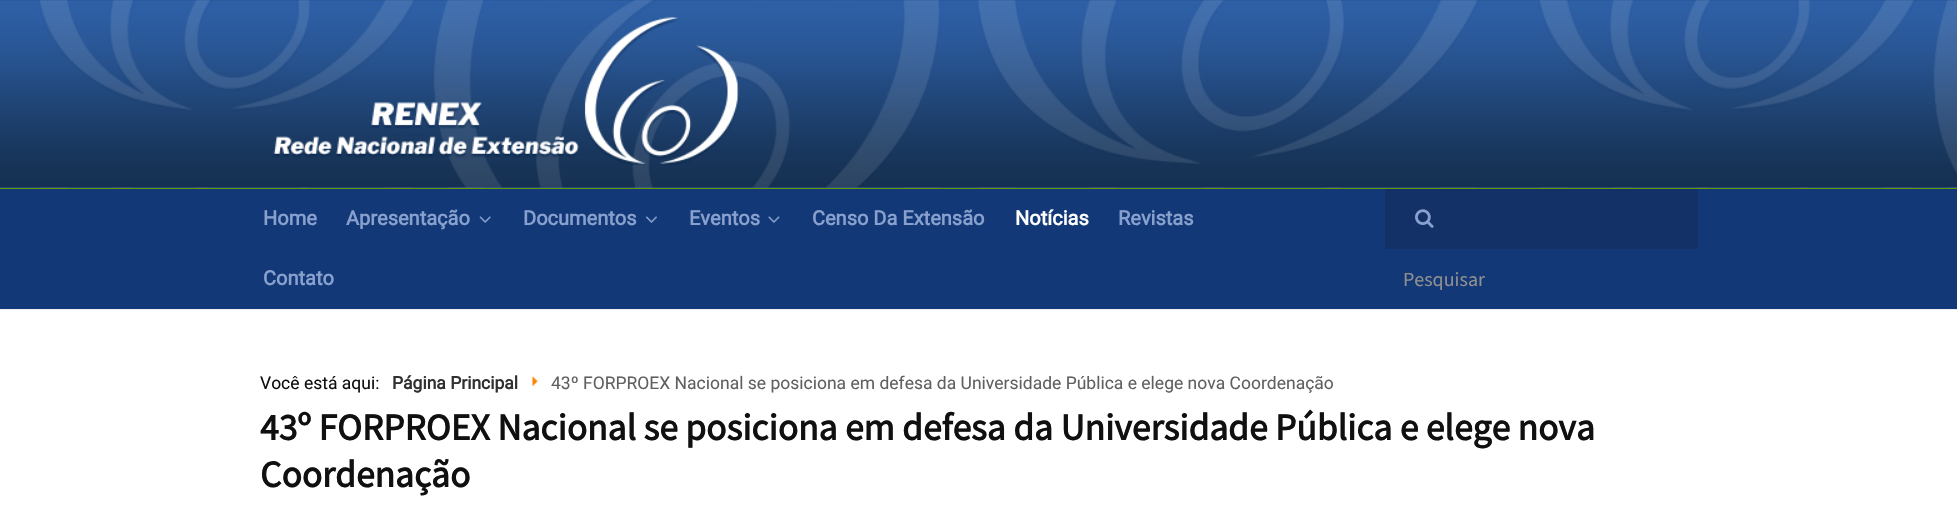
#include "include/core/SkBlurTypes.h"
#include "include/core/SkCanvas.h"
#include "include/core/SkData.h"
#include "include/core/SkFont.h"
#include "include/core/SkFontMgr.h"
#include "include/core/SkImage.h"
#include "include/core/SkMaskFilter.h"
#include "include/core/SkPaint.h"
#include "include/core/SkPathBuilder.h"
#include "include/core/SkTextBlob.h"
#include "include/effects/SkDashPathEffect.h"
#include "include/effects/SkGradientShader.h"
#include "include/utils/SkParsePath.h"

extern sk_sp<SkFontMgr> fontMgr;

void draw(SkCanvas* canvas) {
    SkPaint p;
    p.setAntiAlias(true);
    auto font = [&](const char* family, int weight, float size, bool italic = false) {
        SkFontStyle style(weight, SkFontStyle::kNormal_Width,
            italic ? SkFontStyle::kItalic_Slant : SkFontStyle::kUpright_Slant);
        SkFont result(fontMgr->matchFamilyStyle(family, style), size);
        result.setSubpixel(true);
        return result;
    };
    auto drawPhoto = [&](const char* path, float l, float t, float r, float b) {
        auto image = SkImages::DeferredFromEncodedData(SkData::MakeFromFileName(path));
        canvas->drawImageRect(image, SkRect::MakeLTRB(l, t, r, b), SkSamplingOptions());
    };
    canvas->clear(0xFFFFFFFF);
    drawPhoto("media/1.png", 0, 0, 1957, 188);
    p.setColor(0xFF679A00);
    canvas->drawRect(SkRect::MakeLTRB(0, 188, 1957, 189), p);
    drawPhoto("media/2.png", 273, 17, 739, 165);
    p.setColor(0xFF133877);
    canvas->drawRect(SkRect::MakeLTRB(0, 189, 1957, 309), p);
    p.setColor(0xFFEEEEEE);
    canvas->drawRect(SkRect::MakeLTRB(0, 309, 1957, 310), p);
    auto font1 = font("Roboto", 700, 20);
    p.setColor(0xFF87A0CE);
    canvas->drawString("Home", 263, 225, font1, p);
    canvas->drawString("Apresentação", 346, 225, font1, p);
    drawPhoto("media/3.png", 479, 216, 491, 223);
    canvas->drawString("Documentos", 523, 225, font1, p);
    drawPhoto("media/4.png", 645, 216, 657, 223);
    canvas->drawString("Eventos", 689, 225, font1, p);
    drawPhoto("media/5.png", 768, 216, 780, 223);
    canvas->drawString("Censo Da Extensão", 812, 225, font1, p);
    p.setColor(0xFFFFFFFF);
    canvas->drawString("Notícias", 1015, 225, font1, p);
    p.setColor(0xFF87A0CE);
    canvas->drawString("Revistas", 1118, 225, font1, p);
    canvas->drawString("Contato", 263, 285, font1, p);
    p.setColor(0xFF133067);
    canvas->drawRect(SkRect::MakeLTRB(1385, 189, 1698, 249), p);
    drawPhoto("media/6.png", 1415, 209, 1434, 228);
    auto font2 = font("Source Sans Pro", 400, 20);
    p.setColor(0xFF909090);
    canvas->drawString("Pesquisar", 1403, 286, font2, p);
    auto font3 = font("Roboto", 400, 17.5f);
    p.setColor(0xFF101010);
    canvas->drawString("Você está aqui:", 260, 389, font3, p);
    auto font4 = font("Roboto", 700, 17.5f);
    p.setColor(0xFF303030);
    canvas->drawString("Página Principal", 392, 389, font4, p);
    drawPhoto("media/7.png", 532, 376, 538, 386);
    p.setColor(0xFF606060);
    canvas->drawString("43º FORPROEX Nacional se posiciona em defesa da Universidade Pública e elege nova Coordenação", 551, 389, font3, p);
    auto font5 = font("Source Sans Pro", 700, 37.5f);
    p.setColor(0xFF101010);
    canvas->drawString("43º FORPROEX Nacional se posiciona em defesa da Universidade Pública e elege nova", 260, 440, font5, p);
    canvas->drawString("Coordenação", 260, 487, font5, p);
}
